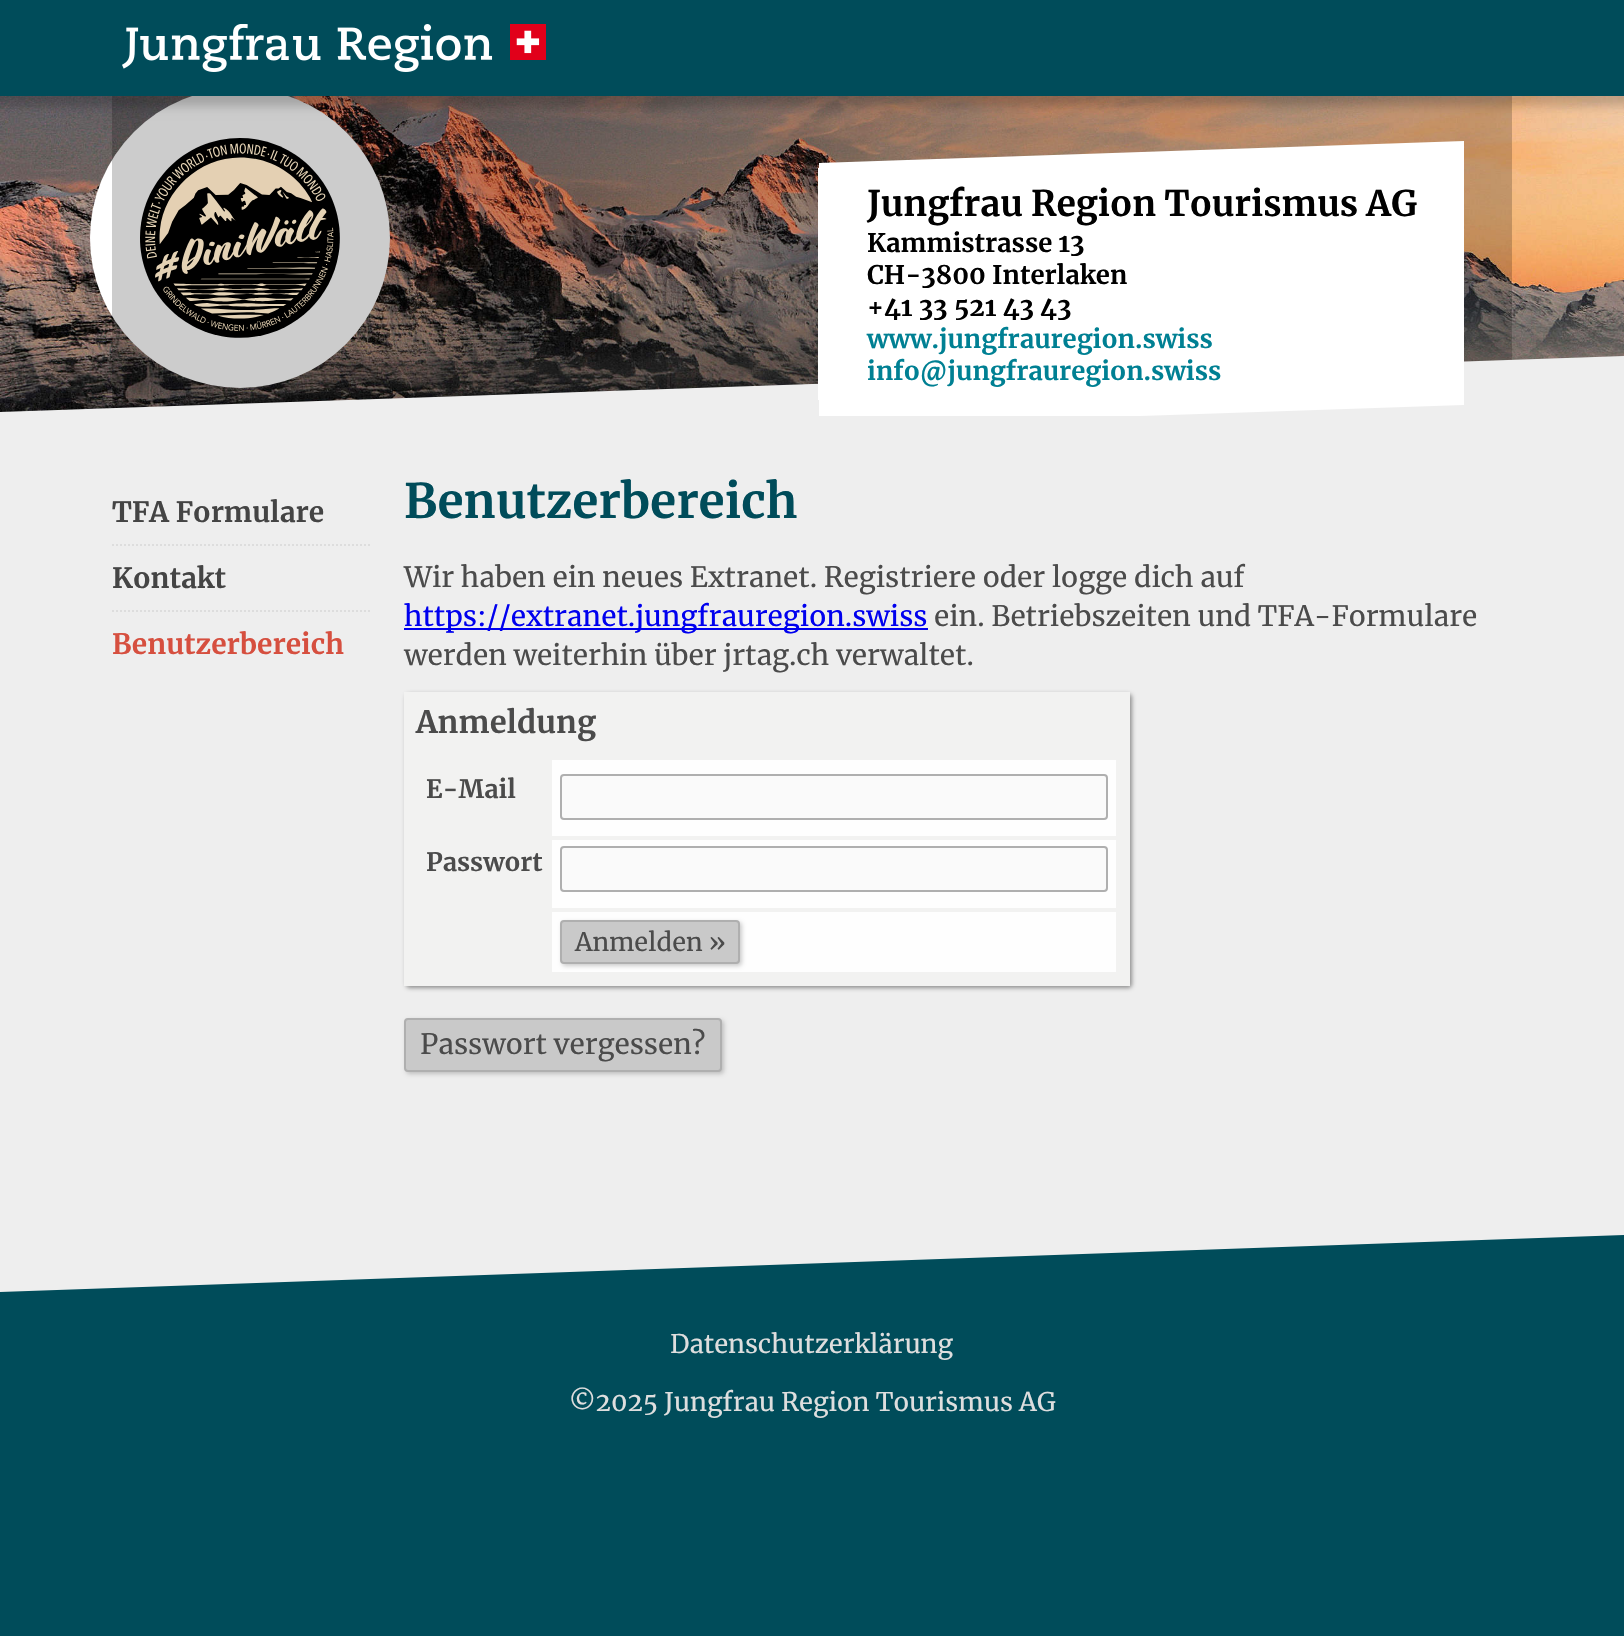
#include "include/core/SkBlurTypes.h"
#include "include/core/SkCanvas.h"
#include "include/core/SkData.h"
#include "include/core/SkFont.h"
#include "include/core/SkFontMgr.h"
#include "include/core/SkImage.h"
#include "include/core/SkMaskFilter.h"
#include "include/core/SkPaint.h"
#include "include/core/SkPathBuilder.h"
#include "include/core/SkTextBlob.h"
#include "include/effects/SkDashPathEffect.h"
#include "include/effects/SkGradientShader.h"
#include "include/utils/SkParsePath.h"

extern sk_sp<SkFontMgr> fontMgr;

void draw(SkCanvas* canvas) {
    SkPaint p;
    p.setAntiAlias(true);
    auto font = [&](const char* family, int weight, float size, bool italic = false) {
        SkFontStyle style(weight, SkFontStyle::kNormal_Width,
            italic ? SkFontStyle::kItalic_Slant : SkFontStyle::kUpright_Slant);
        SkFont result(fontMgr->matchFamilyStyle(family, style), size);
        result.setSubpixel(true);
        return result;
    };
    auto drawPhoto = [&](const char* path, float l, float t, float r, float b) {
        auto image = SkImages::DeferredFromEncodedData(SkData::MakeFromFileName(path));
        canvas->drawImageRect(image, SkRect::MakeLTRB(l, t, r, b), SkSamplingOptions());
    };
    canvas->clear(0xFF004C5A);
    drawPhoto("media/2.png", 0, 96, 1624, 412);
    p.setColor(0xFFFFFFFF);
    canvas->drawCircle(240, 238, 150, p);
    p.setColor(0x33000000);
    canvas->drawRect(SkRect::MakeLTRB(112, 96, 1512, 409), p);
    p.setMaskFilter(SkMaskFilter::MakeBlur(kNormal_SkBlurStyle, 5));
    canvas->drawRect(SkRect::MakeLTRB(-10, -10, 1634, 106), p);
    p.setMaskFilter(nullptr);
    p.setColor(0xFF004C5A);
    canvas->drawRect(SkRect::MakeLTRB(0, 0, 1624, 96), p);
    drawPhoto("media/1.png", 122, 24, 546, 72);
    drawPhoto("media/3.png", 140, 138, 340, 338);
    p.setColor(0xFFEEEEEE);
    canvas->drawPath(SkPathBuilder().moveTo(0, 412).lineTo(1624, 356).lineTo(1624, 484).lineTo(0, 540).close().detach(), p);
    p.setColor(0xFFFFFFFF);
    canvas->drawRect(SkRect::MakeLTRB(818, 168, 1464, 400), p);
    canvas->drawPath(SkPathBuilder().moveTo(819, 163).lineTo(1464, 141).lineTo(1464, 205).lineTo(819, 227).close().detach(), p);
    auto font1 = font("Merriweather", 700, 35.25f);
    p.setColor(0xFF000000);
    canvas->drawString("Jungfrau Region Tourismus AG", 867, 216, font1, p);
    auto font2 = font("Merriweather", 700, 25.6f);
    {
        const struct { const char* s; float x, y; } items[] = {
            {"Kammistrasse 13", 867, 252},
            {"CH-3800 Interlaken", 867, 284},
            {"+41 33 521 43 43", 867, 316},
        };
        for (auto [s, x, y] : items) {
            canvas->drawString(s, x, y, font2, p);
        }
    }
    p.setColor(0xFFFFFFFF);
    canvas->drawPath(SkPathBuilder().moveTo(819, 363).lineTo(1464, 341).lineTo(1464, 405).lineTo(819, 427).close().detach(), p);
    p.setColor(0xFF008093);
    canvas->drawString("www.jungfrauregion.swiss", 867, 348, font2, p);
    canvas->drawString("info@jungfrauregion.swiss", 867, 380, font2, p);
    p.setColor(0xFFEEEEEE);
    canvas->drawRect(SkRect::MakeLTRB(0, 416, 1624, 972), p);
    p.setStyle(SkPaint::kStroke_Style);
    p.setStrokeWidth(2);
    p.setColor(0xFFDDDDDD);
    p.setPathEffect(SkDashPathEffect::Make({{2, 2}}, 0));
    canvas->drawPath(SkPathBuilder().moveTo(112, 545).lineTo(372, 545).detach(), p);
    p.setPathEffect(nullptr);
    auto font3 = font("Merriweather", 700, 28);
    p.setStyle(SkPaint::kFill_Style);
    p.setColor(0xFF444444);
    canvas->drawString("TFA Formulare", 112, 522, font3, p);
    p.setStyle(SkPaint::kStroke_Style);
    p.setColor(0xFFDDDDDD);
    p.setPathEffect(SkDashPathEffect::Make({{2, 2}}, 0));
    canvas->drawPath(SkPathBuilder().moveTo(112, 611).lineTo(372, 611).detach(), p);
    p.setPathEffect(nullptr);
    p.setStyle(SkPaint::kFill_Style);
    p.setColor(0xFF444444);
    canvas->drawString("Kontakt", 112, 588, font3, p);
    p.setColor(0xFFD64F3F);
    canvas->drawString("Benutzerbereich", 112, 654, font3, p);
    auto font4 = font("Merriweather", 700, 47.5f);
    p.setColor(0xFF004C5A);
    canvas->drawString("Benutzerbereich", 404, 518, font4, p);
    auto font5 = font("Merriweather", 400, 28);
    p.setColor(0xFF4B4B4B);
    canvas->drawString("Wir haben ein neues Extranet. Registriere oder logge dich auf", 404, 587, font5, p);
    p.setColor(0xFF0000EE);
    canvas->drawRect(SkRect::MakeLTRB(404, 628, 928, 630), p);
    canvas->drawString("https://extranet.jungfrauregion.swiss", 404, 626, font5, p);
    p.setColor(0xFF4B4B4B);
    canvas->drawString("ein. Betriebszeiten und TFA-Formulare", 934, 626, font5, p);
    canvas->drawString("werden weiterhin über jrtag.ch verwaltet.", 404, 665, font5, p);
    p.setColor(0xFFEEEEEE);
    canvas->drawPath(SkPathBuilder().moveTo(0, 972).lineTo(1624, 915).lineTo(1624, 1235).lineTo(0, 1292).close().detach(), p);
    p.setColor(0x66000000);
    p.setMaskFilter(SkMaskFilter::MakeBlur(kNormal_SkBlurStyle, 2));
    canvas->drawRoundRect(SkRect::MakeLTRB(406, 694, 1132, 988), 4, 4, p);
    p.setMaskFilter(nullptr);
    {
        const struct { float l, t, r, b; SkColor color; } items[] = {
            {404, 692, 1116, 972, 0xFFF2F2F1},
            {1116, 836, 1124, 840, 0xFFF2F2F1},
            {1116, 908, 1124, 912, 0xFFF2F2F1},
            {1116, 692, 1130, 972, 0xFFF2F2F1},
            {404, 972, 1130, 986, 0xFFF2F2F1},
        };
        for (auto [l, t, r, b, color] : items) {
            p.setColor(color);
            canvas->drawRect(SkRect::MakeLTRB(l, t, r, b), p);
        }
    }
    auto font6 = font("Merriweather", 700, 30.75f);
    p.setColor(0xFF4B4B4B);
    canvas->drawString("Anmeldung", 416, 733, font6, p);
    auto font7 = font("Merriweather", 700, 25.25f);
    canvas->drawString("E-Mail", 426, 798, font7, p);
    p.setColor(0xFFFEFEFE);
    canvas->drawRect(SkRect::MakeLTRB(552, 760, 1116, 836), p);
    p.setColor(0xFFFAFAFA);
    canvas->drawRoundRect(SkRect::MakeLTRB(561, 775, 1107, 819), 3, 3, p);
    p.setStyle(SkPaint::kStroke_Style);
    p.setColor(0xFFAFAFAF);
    canvas->drawRoundRect(SkRect::MakeLTRB(561, 775, 1107, 819), 3, 3, p);
    p.setStyle(SkPaint::kFill_Style);
    p.setColor(0xFF4B4B4B);
    canvas->drawString("Passwort", 426, 871, font7, p);
    p.setColor(0xFFFEFEFE);
    canvas->drawRect(SkRect::MakeLTRB(552, 840, 1116, 908), p);
    p.setColor(0xFFFAFAFA);
    canvas->drawRoundRect(SkRect::MakeLTRB(561, 847, 1107, 891), 3, 3, p);
    p.setStyle(SkPaint::kStroke_Style);
    p.setColor(0xFFAFAFAF);
    canvas->drawRoundRect(SkRect::MakeLTRB(561, 847, 1107, 891), 3, 3, p);
    p.setStyle(SkPaint::kFill_Style);
    p.setColor(0xFFFEFEFE);
    canvas->drawRect(SkRect::MakeLTRB(552, 912, 1116, 972), p);
    p.setColor(0x33000000);
    p.setMaskFilter(SkMaskFilter::MakeBlur(kNormal_SkBlurStyle, 2));
    canvas->drawRoundRect(SkRect::MakeLTRB(562, 922, 742, 966), 4, 4, p);
    p.setMaskFilter(nullptr);
    p.setColor(0xFFC9C9C9);
    canvas->drawRoundRect(SkRect::MakeLTRB(561, 921, 739, 963), 3, 3, p);
    p.setStyle(SkPaint::kStroke_Style);
    p.setColor(0xFFAFAFAF);
    canvas->drawRoundRect(SkRect::MakeLTRB(561, 921, 739, 963), 3, 3, p);
    auto font8 = font("Merriweather", 400, 25.25f);
    p.setStyle(SkPaint::kFill_Style);
    p.setColor(0xFF4B4B4B);
    canvas->drawString("Anmelden »", 575, 951, font8, p);
    p.setColor(0x33000000);
    p.setMaskFilter(SkMaskFilter::MakeBlur(kNormal_SkBlurStyle, 2));
    canvas->drawRoundRect(SkRect::MakeLTRB(406, 1020, 724, 1074), 4, 4, p);
    p.setMaskFilter(nullptr);
    p.setColor(0xFFC9C9C9);
    canvas->drawRoundRect(SkRect::MakeLTRB(405, 1019, 721, 1071), 3, 3, p);
    p.setStyle(SkPaint::kStroke_Style);
    p.setColor(0xFFAFAFAF);
    canvas->drawRoundRect(SkRect::MakeLTRB(405, 1019, 721, 1071), 3, 3, p);
    p.setStyle(SkPaint::kFill_Style);
    p.setColor(0xFF4B4B4B);
    canvas->drawString("Passwort vergessen?", 420, 1054, font5, p);
    auto font9 = font("Merriweather", 400, 25.6f);
    p.setColor(0xFFDEDEDE);
    canvas->drawString("Datenschutzerklärung", 670, 1353, font9, p);
    canvas->drawString("©2025 Jungfrau Region Tourismus AG", 569, 1411, font9, p);
}
